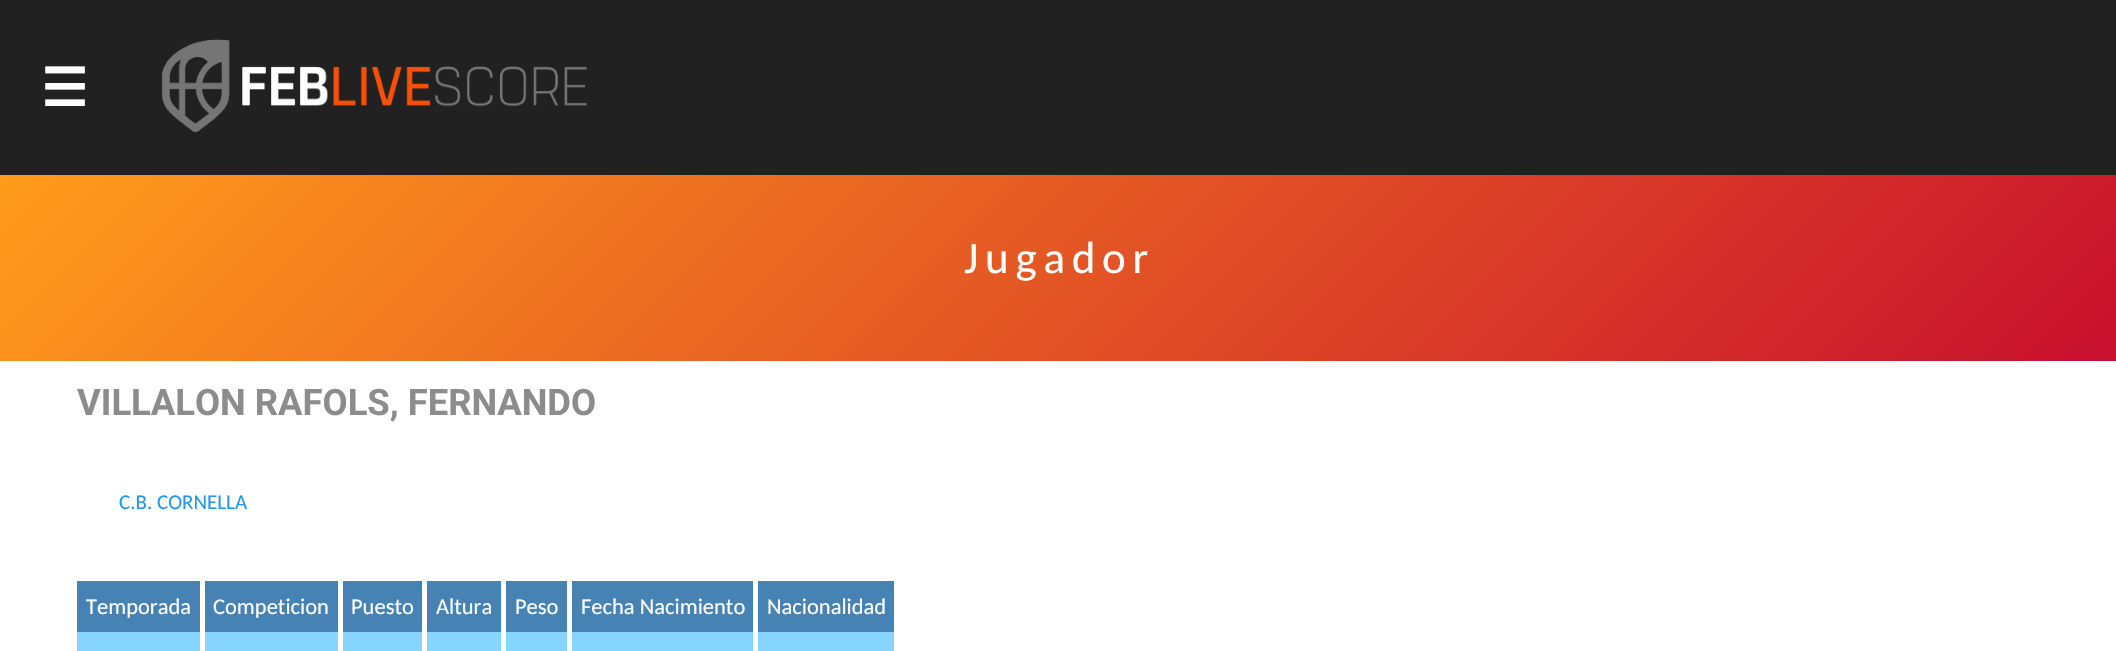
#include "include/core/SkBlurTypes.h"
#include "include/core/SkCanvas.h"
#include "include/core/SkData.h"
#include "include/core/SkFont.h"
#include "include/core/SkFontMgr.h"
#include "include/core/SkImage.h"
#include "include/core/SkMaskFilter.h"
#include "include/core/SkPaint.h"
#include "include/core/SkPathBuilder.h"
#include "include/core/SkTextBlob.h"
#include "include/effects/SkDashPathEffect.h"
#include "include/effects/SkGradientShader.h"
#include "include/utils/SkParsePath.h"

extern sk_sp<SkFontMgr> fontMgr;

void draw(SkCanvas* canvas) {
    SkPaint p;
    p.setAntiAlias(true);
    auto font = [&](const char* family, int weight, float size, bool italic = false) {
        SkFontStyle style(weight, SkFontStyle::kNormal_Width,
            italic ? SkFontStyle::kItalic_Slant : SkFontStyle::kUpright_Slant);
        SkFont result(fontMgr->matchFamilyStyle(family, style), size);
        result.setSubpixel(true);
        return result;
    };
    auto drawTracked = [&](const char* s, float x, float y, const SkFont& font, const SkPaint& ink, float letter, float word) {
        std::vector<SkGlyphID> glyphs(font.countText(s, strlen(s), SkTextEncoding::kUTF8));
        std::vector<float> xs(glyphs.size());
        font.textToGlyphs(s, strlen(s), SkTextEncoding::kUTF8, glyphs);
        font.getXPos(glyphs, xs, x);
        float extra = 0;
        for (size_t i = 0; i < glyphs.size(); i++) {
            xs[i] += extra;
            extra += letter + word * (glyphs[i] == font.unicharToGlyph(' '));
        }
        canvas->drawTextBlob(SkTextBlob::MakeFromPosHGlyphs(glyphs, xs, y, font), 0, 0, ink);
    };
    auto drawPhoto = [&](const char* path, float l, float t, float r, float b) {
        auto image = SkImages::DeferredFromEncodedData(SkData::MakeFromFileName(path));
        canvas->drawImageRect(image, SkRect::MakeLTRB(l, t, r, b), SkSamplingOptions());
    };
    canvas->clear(0xFF212121);
    auto font1 = font("DejaVu Sans", 700, 52);
    p.setColor(0xFFFFFFFF);
    canvas->drawString("☰", 41, 106, font1, p);
    drawPhoto("media/1.png", 161, 39, 587, 133);
    canvas->drawRect(SkRect::MakeLTRB(0, 361, 2116, 651), p);
    {
        const SkColor colors[] = {0xFFFF9C1B, 0xFFC8102E};
        const float stops[] = {0, 1};
        const SkPoint ends[] = {{483, -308}, {1635, 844}};
        p.setShader(SkGradientShader::MakeLinear(ends, colors, stops, 2, SkTileMode::kClamp));
        p.setAlpha(255);
    }
    canvas->drawRect(SkRect::MakeLTRB(0, 175, 2116, 361), p);
    auto font2 = font("Carlito", 400, 45);
    p.setShader(nullptr);
    p.setColor(0xFFFFFFFF);
    drawTracked("Jugador", 964, 273, font2, p, 6.75f, 0);
    auto font3 = font("Roboto", 700, 36.4f);
    p.setColor(0xFF8C8C8C);
    canvas->drawString("VILLALON RAFOLS, FERNANDO", 77, 415, font3, p);
    auto font4 = font("Carlito", 400, 21);
    p.setColor(0xFF2196F3);
    canvas->drawString("C.B. CORNELLA", 119, 509, font4, p);
    p.setColor(0xFF4682B4);
    canvas->drawRect(SkRect::MakeLTRB(77, 581, 200, 632), p);
    auto font5 = font("Carlito", 400, 22.5f);
    p.setColor(0xFFFFFFFF);
    canvas->drawString("Temporada", 86, 614, font5, p);
    p.setColor(0xFF85D5FF);
    canvas->drawRect(SkRect::MakeLTRB(77, 632, 200, 651), p);
    p.setColor(0xFF4682B4);
    canvas->drawRect(SkRect::MakeLTRB(205, 581, 338, 632), p);
    p.setColor(0xFFFFFFFF);
    canvas->drawString("Competicion", 213, 614, font5, p);
    p.setColor(0xFF85D5FF);
    canvas->drawRect(SkRect::MakeLTRB(205, 632, 338, 651), p);
    p.setColor(0xFF4682B4);
    canvas->drawRect(SkRect::MakeLTRB(343, 581, 422, 632), p);
    p.setColor(0xFFFFFFFF);
    canvas->drawString("Puesto", 351, 614, font5, p);
    p.setColor(0xFF85D5FF);
    canvas->drawRect(SkRect::MakeLTRB(343, 632, 422, 651), p);
    p.setColor(0xFF4682B4);
    canvas->drawRect(SkRect::MakeLTRB(427, 581, 501, 632), p);
    p.setColor(0xFFFFFFFF);
    canvas->drawString("Altura", 436, 614, font5, p);
    p.setColor(0xFF85D5FF);
    canvas->drawRect(SkRect::MakeLTRB(427, 632, 501, 651), p);
    p.setColor(0xFF4682B4);
    canvas->drawRect(SkRect::MakeLTRB(506, 581, 567, 632), p);
    p.setColor(0xFFFFFFFF);
    canvas->drawString("Peso", 515, 614, font5, p);
    p.setColor(0xFF85D5FF);
    canvas->drawRect(SkRect::MakeLTRB(506, 632, 567, 651), p);
    p.setColor(0xFF4682B4);
    canvas->drawRect(SkRect::MakeLTRB(572, 581, 753, 632), p);
    p.setColor(0xFFFFFFFF);
    canvas->drawString("Fecha Nacimiento", 581, 614, font5, p);
    p.setColor(0xFF85D5FF);
    canvas->drawRect(SkRect::MakeLTRB(572, 632, 753, 651), p);
    p.setColor(0xFF4682B4);
    canvas->drawRect(SkRect::MakeLTRB(758, 581, 894, 632), p);
    p.setColor(0xFFFFFFFF);
    canvas->drawString("Nacionalidad", 767, 614, font5, p);
    p.setColor(0xFF85D5FF);
    canvas->drawRect(SkRect::MakeLTRB(758, 632, 894, 651), p);
}
